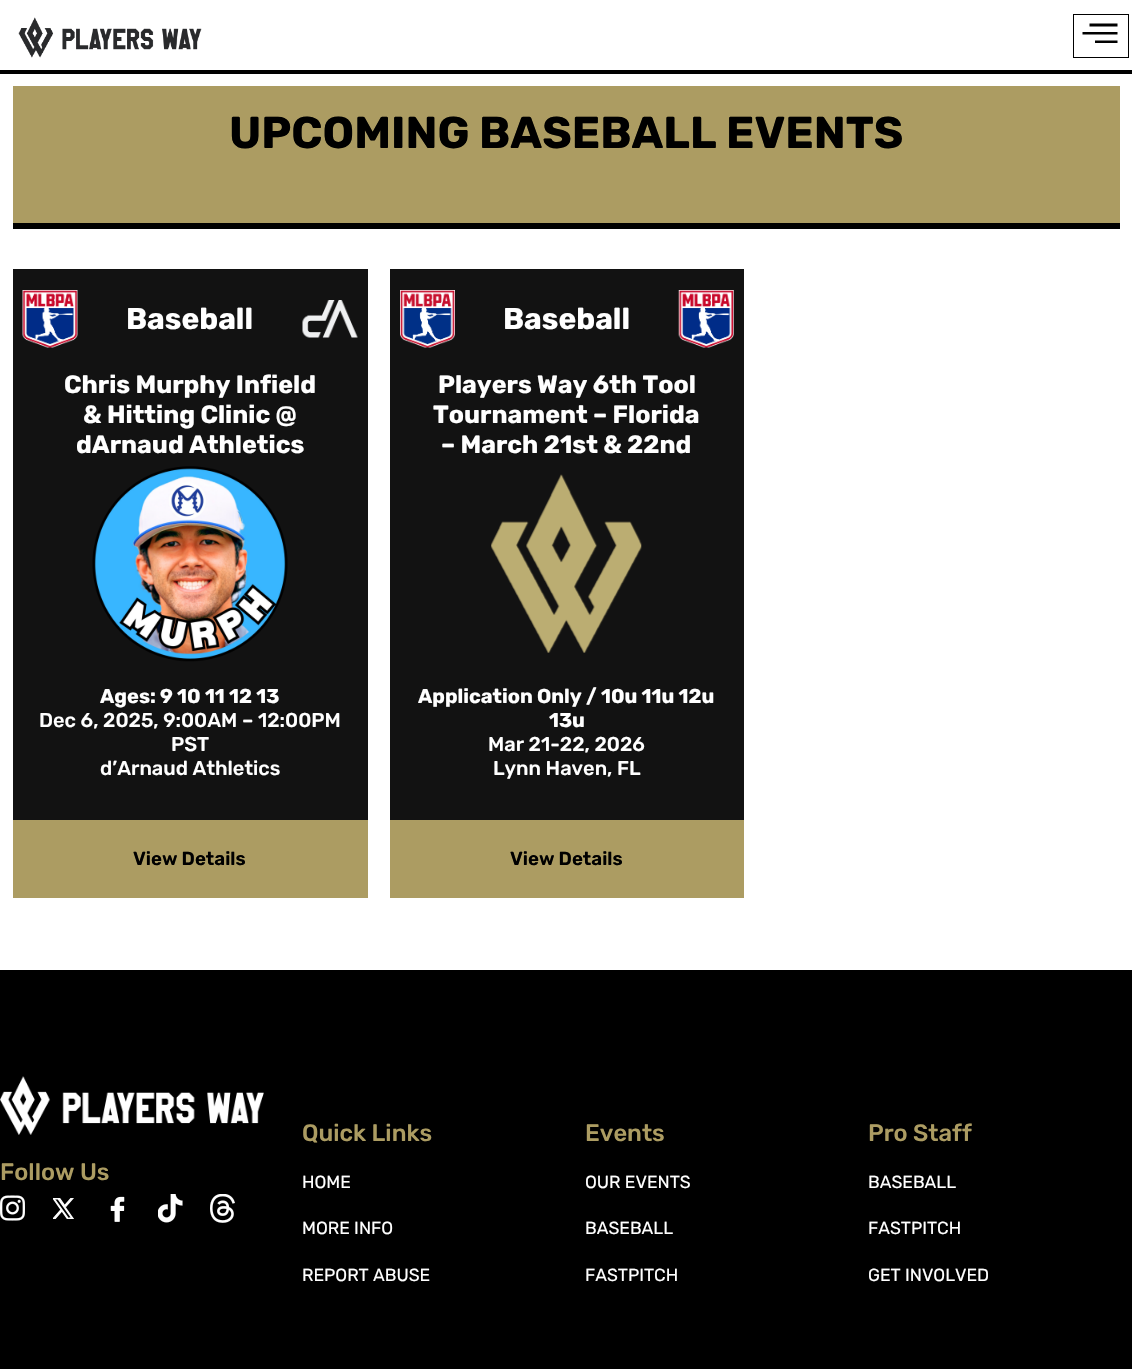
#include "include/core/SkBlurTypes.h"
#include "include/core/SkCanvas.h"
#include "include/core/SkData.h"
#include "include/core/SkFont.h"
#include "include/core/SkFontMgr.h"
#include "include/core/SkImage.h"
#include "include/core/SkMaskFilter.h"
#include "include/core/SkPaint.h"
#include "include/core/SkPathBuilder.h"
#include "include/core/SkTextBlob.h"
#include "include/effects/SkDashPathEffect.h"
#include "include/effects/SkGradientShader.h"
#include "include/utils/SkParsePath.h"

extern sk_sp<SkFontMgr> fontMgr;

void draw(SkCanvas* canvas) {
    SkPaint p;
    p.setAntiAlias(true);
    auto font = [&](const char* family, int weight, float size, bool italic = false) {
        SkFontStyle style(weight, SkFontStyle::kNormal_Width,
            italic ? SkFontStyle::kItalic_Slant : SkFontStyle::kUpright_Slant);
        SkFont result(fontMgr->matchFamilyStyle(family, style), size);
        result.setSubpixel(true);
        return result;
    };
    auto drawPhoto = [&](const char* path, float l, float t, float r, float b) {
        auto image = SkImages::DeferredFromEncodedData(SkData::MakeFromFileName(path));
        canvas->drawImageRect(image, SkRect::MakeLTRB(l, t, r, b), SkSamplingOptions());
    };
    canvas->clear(0xFFFFFFFF);
    p.setColor(0xFF000000);
    canvas->drawRect(SkRect::MakeLTRB(0, 70, 1132, 74), p);
    drawPhoto("media/1.png", 18, 17, 202, 58);
    p.setStyle(SkPaint::kStroke_Style);
    p.setStrokeWidth(1);
    canvas->drawRect(SkRect::MakeLTRB(1073.5f, 14.5f, 1128.5f, 57.5f), p);
    p.setStyle(SkPaint::kFill_Style);
    canvas->drawPath(SkPathBuilder().moveTo(1082.5f, 34.5f).lineTo(1117.5f, 34.5f).lineTo(1117.5f, 32).lineTo(1082.5f, 32).close().moveTo(1095, 43).lineTo(1117.5f, 43).lineTo(1117.5f, 40.5f).lineTo(1095, 40.5f).close().moveTo(1089.5f, 23.5f).lineTo(1089.5f, 26.5f).lineTo(1117.5f, 26.5f).lineTo(1117.5f, 23.5f).close().detach(), p);
    p.setColor(0xFFAC9C62);
    canvas->drawRect(SkRect::MakeLTRB(13, 86, 1120, 223), p);
    p.setColor(0xFF000000);
    canvas->drawRect(SkRect::MakeLTRB(13, 223, 1120, 229), p);
    auto font1 = font("Rubik", 700, 44.5f);
    canvas->drawString("UPCOMING BASEBALL EVENTS", 229, 148, font1, p);
    p.setColor(0xFF121212);
    canvas->drawRect(SkRect::MakeLTRB(13, 269, 368, 820), p);
    drawPhoto("media/2.png", 22, 290, 78, 348);
    auto font2 = font("Rubik", 700, 30);
    p.setColor(0xFFFFFFFF);
    canvas->drawString("Baseball", 126, 329, font2, p);
    drawPhoto("media/3.png", 302, 300, 358, 338);
    auto font3 = font("Rubik", 700, 25);
    {
        const struct { const char* s; float x, y; } items[] = {
            {"Chris Murphy Infield", 64, 393},
            {"& Hitting Clinic @", 83, 423},
            {"dArnaud Athletics", 76, 453},
        };
        for (auto [s, x, y] : items) {
            canvas->drawString(s, x, y, font3, p);
        }
    }
    drawPhoto("media/4.png", 92, 466, 288, 662);
    auto font4 = font("Rubik", 700, 20);
    canvas->drawString("Ages: 9 10 11 12 13", 100, 703, font4, p);
    auto font5 = font("Rubik", 500, 20);
    {
        const struct { const char* s; float x, y; } items[] = {
            {"Dec 6, 2025, 9:00AM – 12:00PM", 39, 727},
            {"PST", 171, 751},
            {"d’Arnaud Athletics", 100, 775},
        };
        for (auto [s, x, y] : items) {
            canvas->drawString(s, x, y, font5, p);
        }
    }
    p.setColor(0xFFAC9C62);
    canvas->drawRect(SkRect::MakeLTRB(13, 820, 368, 898), p);
    auto font6 = font("Rubik", 600, 18.75f);
    p.setColor(0xFF000000);
    canvas->drawString("View Details", 133, 865, font6, p);
    p.setColor(0xFF121212);
    canvas->drawRect(SkRect::MakeLTRB(390, 269, 744, 820), p);
    drawPhoto("media/5.png", 400, 290, 455, 348);
    p.setColor(0xFFFFFFFF);
    canvas->drawString("Baseball", 503, 329, font2, p);
    drawPhoto("media/6.png", 678, 290, 734, 348);
    {
        const struct { const char* s; float x, y; } items[] = {
            {"Players Way 6th Tool", 438, 393},
            {"Tournament – Florida", 433, 423},
            {"– March 21st & 22nd", 441, 453},
        };
        for (auto [s, x, y] : items) {
            canvas->drawString(s, x, y, font3, p);
        }
    }
    drawPhoto("media/7.png", 491, 474, 642, 653);
    canvas->drawString("Application Only / 10u 11u 12u", 418, 703, font4, p);
    canvas->drawString("13u", 549, 727, font4, p);
    canvas->drawString("Mar 21-22, 2026", 488, 751, font5, p);
    canvas->drawString("Lynn Haven, FL", 493, 775, font5, p);
    p.setColor(0xFFAC9C62);
    canvas->drawRect(SkRect::MakeLTRB(390, 820, 744, 898), p);
    p.setColor(0xFF000000);
    canvas->drawString("View Details", 510, 865, font6, p);
    canvas->drawRect(SkRect::MakeLTRB(0, 970, 1132, 1369), p);
    drawPhoto("media/8.png", 0, 1076, 264, 1135);
    auto font7 = font("Rubik", 500, 23.75f);
    p.setColor(0xFFAC9C62);
    canvas->drawString("Follow Us", 0, 1180, font7, p);
    drawPhoto("media/9.png", 0, 1195, 25, 1221);
    drawPhoto("media/10.png", 53, 1198, 74, 1219);
    drawPhoto("media/11.png", 110, 1196, 125, 1222);
    drawPhoto("media/12.png", 158, 1194, 183, 1223);
    drawPhoto("media/13.png", 210, 1194, 235, 1223);
    canvas->drawString("Quick Links", 302, 1141, font7, p);
    auto font8 = font("Rubik", 400, 17.5f);
    p.setColor(0xFFFFFFFF);
    {
        const struct { const char* s; float x, y; } items[] = {
            {"HOME", 302, 1188},
            {"MORE INFO", 302, 1234},
            {"REPORT ABUSE", 302, 1281},
        };
        for (auto [s, x, y] : items) {
            canvas->drawString(s, x, y, font8, p);
        }
    }
    p.setColor(0xFFAC9C62);
    canvas->drawString("Events", 585, 1141, font7, p);
    p.setColor(0xFFFFFFFF);
    {
        const struct { const char* s; float x, y; } items[] = {
            {"OUR EVENTS", 585, 1188},
            {"BASEBALL", 585, 1234},
            {"FASTPITCH", 585, 1281},
        };
        for (auto [s, x, y] : items) {
            canvas->drawString(s, x, y, font8, p);
        }
    }
    p.setColor(0xFFAC9C62);
    canvas->drawString("Pro Staff", 868, 1141, font7, p);
    p.setColor(0xFFFFFFFF);
    {
        const struct { const char* s; float x, y; } items[] = {
            {"BASEBALL", 868, 1188},
            {"FASTPITCH", 868, 1234},
            {"GET INVOLVED", 868, 1281},
        };
        for (auto [s, x, y] : items) {
            canvas->drawString(s, x, y, font8, p);
        }
    }
}
